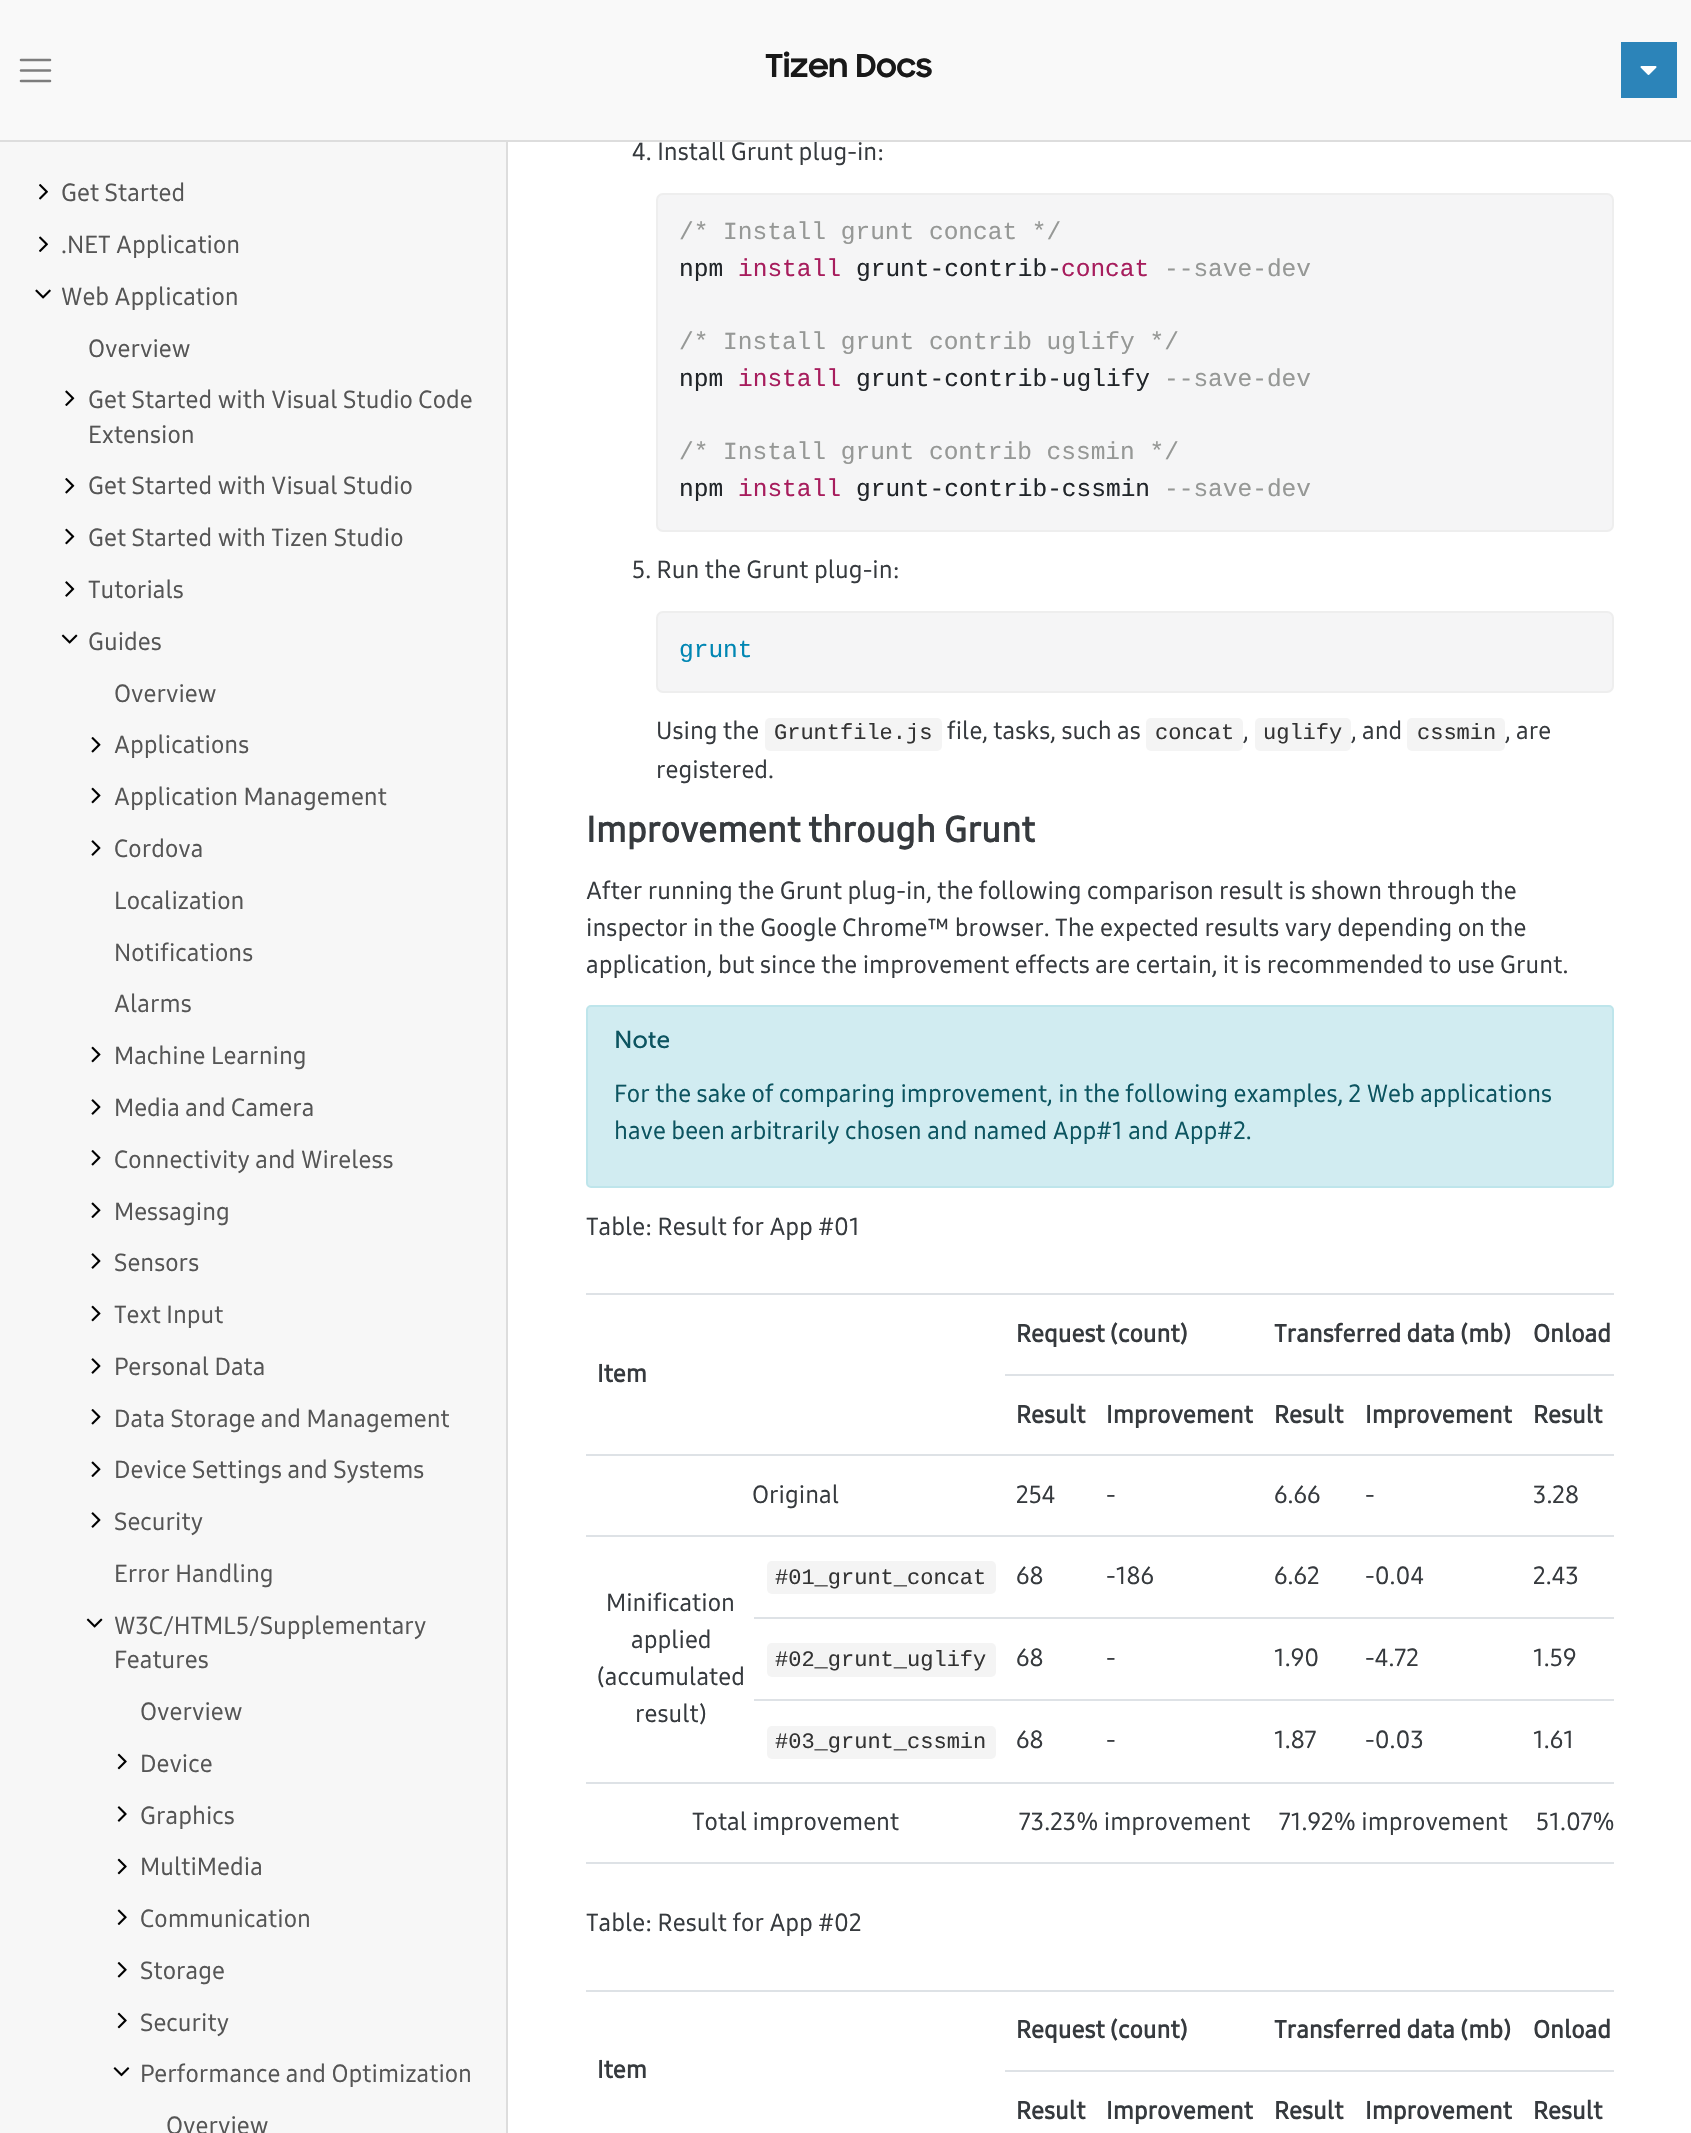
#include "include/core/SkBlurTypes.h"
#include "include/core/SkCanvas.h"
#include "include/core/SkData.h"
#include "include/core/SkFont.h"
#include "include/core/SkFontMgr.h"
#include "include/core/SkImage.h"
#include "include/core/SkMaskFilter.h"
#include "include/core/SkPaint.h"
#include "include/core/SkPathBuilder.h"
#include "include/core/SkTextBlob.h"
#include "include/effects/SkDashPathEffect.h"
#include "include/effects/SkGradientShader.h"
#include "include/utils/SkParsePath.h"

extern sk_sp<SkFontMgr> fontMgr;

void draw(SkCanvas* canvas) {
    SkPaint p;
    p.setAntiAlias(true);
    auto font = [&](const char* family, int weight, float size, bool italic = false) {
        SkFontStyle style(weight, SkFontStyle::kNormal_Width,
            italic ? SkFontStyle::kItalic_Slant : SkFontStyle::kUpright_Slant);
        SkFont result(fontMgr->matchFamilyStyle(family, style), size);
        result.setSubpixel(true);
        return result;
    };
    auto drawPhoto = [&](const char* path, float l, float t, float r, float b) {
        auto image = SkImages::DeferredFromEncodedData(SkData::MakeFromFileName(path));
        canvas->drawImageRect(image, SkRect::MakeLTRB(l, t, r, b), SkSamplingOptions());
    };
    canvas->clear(0xFFFFFFFF);
    p.setColor(0xFFF9F9F9);
    canvas->drawRect(SkRect::MakeLTRB(0, 0, 1691, 140), p);
    auto font1 = font("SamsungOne", 500, 24.5f);
    p.setColor(0xFF363A3E);
    canvas->drawString("4. Install Grunt plug-in:", 632, 160, font1, p);
    p.setColor(0xFFDDDDDD);
    canvas->drawRect(SkRect::MakeLTRB(0, 140, 1691, 142), p);
    p.setStyle(SkPaint::kStroke_Style);
    p.setStrokeWidth(2.6f);
    p.setStrokeCap(SkPaint::kRound_Cap);
    p.setColor(0xFF7D7D7D);
    canvas->drawPath(SkPathBuilder().moveTo(21, 60).lineTo(50, 60).moveTo(21, 70.5f).lineTo(50, 70.5f).moveTo(21, 81).lineTo(50, 81).detach(), p);
    auto font2 = font("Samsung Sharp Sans", 700, 31.5f);
    p.setStyle(SkPaint::kFill_Style);
    p.setColor(0xFF191919);
    canvas->drawString("Tizen Docs", 765, 77, font2, p);
    p.setColor(0xFF2C84B9);
    canvas->drawRect(SkRect::MakeLTRB(1621, 42, 1677, 98), p);
    drawPhoto("media/1.png", 1640, 66, 1657, 75);
    p.setColor(0xFFF7F7F7);
    canvas->drawRect(SkRect::MakeLTRB(0, 142, 506, 2133), p);
    p.setColor(0xFFDDDDDD);
    canvas->drawRect(SkRect::MakeLTRB(506, 142, 508, 2133), p);
    drawPhoto("media/2.png", 39, 184, 48, 200);
    p.setColor(0xFF555555);
    canvas->drawString("Get Started", 61, 201, font1, p);
    drawPhoto("media/3.png", 39, 236, 48, 252);
    canvas->drawString(".NET Application", 61, 253, font1, p);
    drawPhoto("media/4.png", 35, 289, 51, 299);
    canvas->drawString("Web Application", 61, 305, font1, p);
    canvas->drawString("Overview", 88, 357, font1, p);
    drawPhoto("media/5.png", 65, 390, 75, 406);
    canvas->drawString("Get Started with Visual Studio Code", 88, 408, font1, p);
    canvas->drawString("Extension", 88, 443, font1, p);
    drawPhoto("media/6.png", 65, 478, 75, 494);
    canvas->drawString("Get Started with Visual Studio", 88, 494, font1, p);
    drawPhoto("media/7.png", 65, 528, 75, 545);
    canvas->drawString("Get Started with Tizen Studio", 88, 546, font1, p);
    drawPhoto("media/8.png", 65, 581, 75, 597);
    canvas->drawString("Tutorials", 88, 598, font1, p);
    drawPhoto("media/9.png", 61, 634, 78, 644);
    canvas->drawString("Guides", 88, 650, font1, p);
    canvas->drawString("Overview", 114, 702, font1, p);
    drawPhoto("media/10.png", 91, 737, 101, 753);
    canvas->drawString("Applications", 114, 753, font1, p);
    drawPhoto("media/11.png", 91, 787, 101, 804);
    canvas->drawString("Application Management", 114, 805, font1, p);
    drawPhoto("media/12.png", 91, 840, 101, 856);
    {
        const struct { const char* s; float x, y; } items[] = {
            {"Cordova", 114, 857},
            {"Localization", 114, 909},
            {"Notifications", 114, 961},
            {"Alarms", 114, 1012},
        };
        for (auto [s, x, y] : items) {
            canvas->drawString(s, x, y, font1, p);
        }
    }
    drawPhoto("media/11.png", 91, 1046, 101, 1063);
    canvas->drawString("Machine Learning", 114, 1064, font1, p);
    drawPhoto("media/12.png", 91, 1099, 101, 1115);
    canvas->drawString("Media and Camera", 114, 1116, font1, p);
    drawPhoto("media/10.png", 91, 1150, 101, 1166);
    canvas->drawString("Connectivity and Wireless", 114, 1168, font1, p);
    drawPhoto("media/13.png", 91, 1202, 101, 1218);
    canvas->drawString("Messaging", 114, 1220, font1, p);
    drawPhoto("media/12.png", 91, 1253, 101, 1269);
    canvas->drawString("Sensors", 114, 1271, font1, p);
    drawPhoto("media/11.png", 91, 1305, 101, 1322);
    canvas->drawString("Text Input", 114, 1323, font1, p);
    drawPhoto("media/12.png", 91, 1358, 101, 1374);
    canvas->drawString("Personal Data", 114, 1375, font1, p);
    drawPhoto("media/10.png", 91, 1409, 101, 1425);
    canvas->drawString("Data Storage and Management", 114, 1427, font1, p);
    drawPhoto("media/13.png", 91, 1461, 101, 1477);
    canvas->drawString("Device Settings and Systems", 114, 1478, font1, p);
    drawPhoto("media/12.png", 91, 1512, 101, 1528);
    canvas->drawString("Security", 114, 1530, font1, p);
    canvas->drawString("Error Handling", 114, 1582, font1, p);
    drawPhoto("media/14.png", 86, 1618, 103, 1628);
    {
        const struct { const char* s; float x, y; } items[] = {
            {"W3C/HTML5/Supplementary", 114, 1634},
            {"Features", 114, 1668},
            {"Overview", 140, 1720},
        };
        for (auto [s, x, y] : items) {
            canvas->drawString(s, x, y, font1, p);
        }
    }
    drawPhoto("media/15.png", 117, 1753, 127, 1770);
    canvas->drawString("Device", 140, 1772, font1, p);
    drawPhoto("media/16.png", 117, 1806, 127, 1822);
    canvas->drawString("Graphics", 140, 1824, font1, p);
    drawPhoto("media/15.png", 117, 1858, 127, 1875);
    canvas->drawString("MultiMedia", 140, 1875, font1, p);
    drawPhoto("media/17.png", 117, 1909, 127, 1925);
    canvas->drawString("Communication", 140, 1927, font1, p);
    drawPhoto("media/18.png", 117, 1962, 127, 1978);
    canvas->drawString("Storage", 140, 1979, font1, p);
    drawPhoto("media/15.png", 117, 2012, 127, 2029);
    canvas->drawString("Security", 140, 2031, font1, p);
    drawPhoto("media/19.png", 113, 2067, 130, 2077);
    canvas->drawString("Performance and Optimization", 140, 2082, font1, p);
    canvas->drawString("Overview", 166, 2134, font1, p);
    p.setColor(0xFFF5F5F6);
    canvas->drawRoundRect(SkRect::MakeLTRB(657, 194, 1613, 531), 6, 6, p);
    p.setStyle(SkPaint::kStroke_Style);
    p.setStrokeWidth(2);
    p.setStrokeCap(SkPaint::kButt_Cap);
    p.setColor(0xFFEEEEEE);
    canvas->drawRoundRect(SkRect::MakeLTRB(657, 194, 1613, 531), 6, 6, p);
    auto font3 = font("Liberation Mono", 400, 24.5f);
    p.setStyle(SkPaint::kFill_Style);
    p.setColor(0xFF969896);
    canvas->drawString("/* Install grunt concat */", 679, 239, font3, p);
    p.setColor(0xFF212529);
    canvas->drawString("npm", 679, 276, font3, p);
    p.setColor(0xFFA71D5D);
    canvas->drawString("install", 738, 276, font3, p);
    p.setColor(0xFF212529);
    canvas->drawString("grunt-contrib-", 856, 276, font3, p);
    p.setColor(0xFFA71D5D);
    canvas->drawString("concat", 1061, 276, font3, p);
    p.setColor(0xFF969896);
    canvas->drawString("--save-dev", 1164, 276, font3, p);
    canvas->drawString("/* Install grunt contrib uglify */", 679, 349, font3, p);
    p.setColor(0xFF212529);
    canvas->drawString("npm", 679, 386, font3, p);
    p.setColor(0xFFA71D5D);
    canvas->drawString("install", 738, 386, font3, p);
    p.setColor(0xFF212529);
    canvas->drawString("grunt-contrib-uglify", 856, 386, font3, p);
    p.setColor(0xFF969896);
    canvas->drawString("--save-dev", 1164, 386, font3, p);
    canvas->drawString("/* Install grunt contrib cssmin */", 679, 459, font3, p);
    p.setColor(0xFF212529);
    canvas->drawString("npm", 679, 496, font3, p);
    p.setColor(0xFFA71D5D);
    canvas->drawString("install", 738, 496, font3, p);
    p.setColor(0xFF212529);
    canvas->drawString("grunt-contrib-cssmin", 856, 496, font3, p);
    p.setColor(0xFF969896);
    canvas->drawString("--save-dev", 1164, 496, font3, p);
    p.setColor(0xFF363A3E);
    canvas->drawString("5. Run the Grunt plug-in:", 632, 578, font1, p);
    p.setColor(0xFFF5F5F6);
    canvas->drawRoundRect(SkRect::MakeLTRB(657, 612, 1613, 692), 6, 6, p);
    p.setStyle(SkPaint::kStroke_Style);
    p.setColor(0xFFEEEEEE);
    canvas->drawRoundRect(SkRect::MakeLTRB(657, 612, 1613, 692), 6, 6, p);
    p.setStyle(SkPaint::kFill_Style);
    p.setColor(0xFF0086B3);
    canvas->drawString("grunt", 679, 657, font3, p);
    p.setColor(0xFF363A3E);
    canvas->drawString("Using the", 656, 739, font1, p);
    p.setColor(0xFFF4F4F4);
    canvas->drawRoundRect(SkRect::MakeLTRB(765, 718, 942, 751), 5, 5, p);
    auto font4 = font("Liberation Mono", 400, 22);
    p.setColor(0xFF333333);
    canvas->drawString("Gruntfile.js", 774, 739, font4, p);
    p.setColor(0xFF363A3E);
    canvas->drawString("file, tasks, such as", 947, 739, font1, p);
    p.setColor(0xFFF4F4F4);
    canvas->drawRoundRect(SkRect::MakeLTRB(1146, 718, 1243, 751), 5, 5, p);
    p.setColor(0xFF333333);
    canvas->drawString("concat", 1155, 739, font4, p);
    p.setColor(0xFF363A3E);
    canvas->drawString(",", 1243, 739, font1, p);
    p.setColor(0xFFF4F4F4);
    canvas->drawRoundRect(SkRect::MakeLTRB(1255, 718, 1351, 751), 5, 5, p);
    p.setColor(0xFF333333);
    canvas->drawString("uglify", 1263, 739, font4, p);
    p.setColor(0xFF363A3E);
    canvas->drawString(", and", 1351, 739, font1, p);
    p.setColor(0xFFF4F4F4);
    canvas->drawRoundRect(SkRect::MakeLTRB(1407, 718, 1505, 751), 5, 5, p);
    p.setColor(0xFF333333);
    canvas->drawString("cssmin", 1417, 739, font4, p);
    p.setColor(0xFF363A3E);
    canvas->drawString(", are", 1505, 739, font1, p);
    canvas->drawString("registered.", 656, 778, font1, p);
    auto font5 = font("SamsungOne", 700, 35.75f);
    canvas->drawString("Improvement through Grunt", 586, 842, font5, p);
    {
        const struct { const char* s; float x, y; } items[] = {
            {"After running the Grunt plug-in, the following comparison result is shown through the", 586, 899},
            {"inspector in the Google Chrome™ browser. The expected results vary depending on the", 586, 936},
            {"application, but since the improvement effects are certain, it is recommended to use Grunt.", 586, 973},
        };
        for (auto [s, x, y] : items) {
            canvas->drawString(s, x, y, font1, p);
        }
    }
    p.setColor(0xFFD1ECF1);
    canvas->drawRoundRect(SkRect::MakeLTRB(587, 1006, 1613, 1187), 4, 4, p);
    p.setStyle(SkPaint::kStroke_Style);
    p.setColor(0xFFBEE5EB);
    canvas->drawRoundRect(SkRect::MakeLTRB(587, 1006, 1613, 1187), 4, 4, p);
    auto font6 = font("Museo Sans", 400, 24.5f);
    p.setStyle(SkPaint::kFill_Style);
    p.setColor(0xFF0C5460);
    canvas->drawString("Note", 614, 1048, font6, p);
    canvas->drawString("For the sake of comparing improvement, in the following examples, 2 Web applications", 614, 1102, font1, p);
    canvas->drawString("have been arbitrarily chosen and named App#1 and App#2.", 614, 1139, font1, p);
    p.setColor(0xFF363A3E);
    canvas->drawString("Table: Result for App #01", 586, 1235, font1, p);
    p.setColor(0xFFDEE2E6);
    canvas->drawRect(SkRect::MakeLTRB(586, 1293, 1614, 1295), p);
    auto font7 = font("SamsungOne", 700, 24.5f);
    p.setColor(0xFF363A3E);
    canvas->drawString("Request (count)", 1016, 1342, font7, p);
    canvas->drawString("Transferred data (mb)", 1274, 1342, font7, p);
    p.setColor(0xFFDEE2E6);
    canvas->drawRect(SkRect::MakeLTRB(1005, 1374, 1614, 1376), p);
    p.setColor(0xFF363A3E);
    {
        const struct { const char* s; float x, y; } items[] = {
            {"Onload", 1533, 1342},
            {"Item", 597, 1382},
            {"Result", 1016, 1423},
            {"Improvement", 1106, 1423},
            {"Result", 1274, 1423},
            {"Improvement", 1365, 1423},
        };
        for (auto [s, x, y] : items) {
            canvas->drawString(s, x, y, font7, p);
        }
    }
    p.setColor(0xFFDEE2E6);
    canvas->drawRect(SkRect::MakeLTRB(586, 1454, 1614, 1456), p);
    p.setColor(0xFF363A3E);
    canvas->drawString("Result", 1533, 1423, font7, p);
    {
        const struct { const char* s; float x, y; } items[] = {
            {"Original", 752, 1503},
            {"254", 1016, 1503},
            {"-", 1106, 1503},
            {"6.66", 1274, 1503},
            {"-", 1365, 1503},
        };
        for (auto [s, x, y] : items) {
            canvas->drawString(s, x, y, font1, p);
        }
    }
    p.setColor(0xFFDEE2E6);
    canvas->drawRect(SkRect::MakeLTRB(586, 1535, 1614, 1537), p);
    p.setColor(0xFF363A3E);
    canvas->drawString("3.28", 1533, 1503, font1, p);
    p.setColor(0xFFF4F4F4);
    canvas->drawRoundRect(SkRect::MakeLTRB(767, 1561, 996, 1594), 5, 5, p);
    p.setColor(0xFF333333);
    canvas->drawString("#01_grunt_concat", 775, 1584, font4, p);
    p.setColor(0xFF363A3E);
    {
        const struct { const char* s; float x, y; } items[] = {
            {"68", 1016, 1584},
            {"-186", 1106, 1584},
            {"6.62", 1274, 1584},
            {"-0.04", 1365, 1584},
        };
        for (auto [s, x, y] : items) {
            canvas->drawString(s, x, y, font1, p);
        }
    }
    p.setColor(0xFFDEE2E6);
    canvas->drawRect(SkRect::MakeLTRB(754, 1617, 1614, 1619), p);
    p.setColor(0xFF363A3E);
    {
        const struct { const char* s; float x, y; } items[] = {
            {"2.43", 1533, 1584},
            {"Minification", 606, 1611},
            {"applied", 631, 1648},
            {"(accumulated", 597, 1685},
            {"result)", 635, 1722},
        };
        for (auto [s, x, y] : items) {
            canvas->drawString(s, x, y, font1, p);
        }
    }
    p.setColor(0xFFF4F4F4);
    canvas->drawRoundRect(SkRect::MakeLTRB(767, 1643, 996, 1677), 5, 5, p);
    p.setColor(0xFF333333);
    canvas->drawString("#02_grunt_uglify", 775, 1666, font4, p);
    p.setColor(0xFF363A3E);
    {
        const struct { const char* s; float x, y; } items[] = {
            {"68", 1016, 1666},
            {"-", 1106, 1666},
            {"1.90", 1274, 1666},
            {"-4.72", 1365, 1666},
        };
        for (auto [s, x, y] : items) {
            canvas->drawString(s, x, y, font1, p);
        }
    }
    p.setColor(0xFFDEE2E6);
    canvas->drawRect(SkRect::MakeLTRB(754, 1699, 1614, 1701), p);
    p.setColor(0xFF363A3E);
    canvas->drawString("1.59", 1533, 1666, font1, p);
    p.setColor(0xFFF4F4F4);
    canvas->drawRoundRect(SkRect::MakeLTRB(767, 1726, 996, 1759), 5, 5, p);
    p.setColor(0xFF333333);
    canvas->drawString("#03_grunt_cssmin", 775, 1748, font4, p);
    p.setColor(0xFF363A3E);
    {
        const struct { const char* s; float x, y; } items[] = {
            {"68", 1016, 1748},
            {"-", 1106, 1748},
            {"1.87", 1274, 1748},
            {"-0.03", 1365, 1748},
        };
        for (auto [s, x, y] : items) {
            canvas->drawString(s, x, y, font1, p);
        }
    }
    p.setColor(0xFFDEE2E6);
    canvas->drawRect(SkRect::MakeLTRB(586, 1782, 1614, 1784), p);
    p.setColor(0xFF363A3E);
    {
        const struct { const char* s; float x, y; } items[] = {
            {"1.61", 1533, 1748},
            {"Total improvement", 692, 1830},
            {"73.23% improvement", 1019, 1830},
            {"71.92% improvement", 1279, 1830},
        };
        for (auto [s, x, y] : items) {
            canvas->drawString(s, x, y, font1, p);
        }
    }
    p.setColor(0xFFDEE2E6);
    canvas->drawRect(SkRect::MakeLTRB(586, 1862, 1614, 1864), p);
    p.setColor(0xFF363A3E);
    canvas->drawString("51.07%", 1536, 1830, font1, p);
    canvas->drawString("Table: Result for App #02", 586, 1931, font1, p);
    p.setColor(0xFFDEE2E6);
    canvas->drawRect(SkRect::MakeLTRB(586, 1990, 1614, 1992), p);
    p.setColor(0xFF363A3E);
    canvas->drawString("Request (count)", 1016, 2038, font7, p);
    canvas->drawString("Transferred data (mb)", 1274, 2038, font7, p);
    p.setColor(0xFFDEE2E6);
    canvas->drawRect(SkRect::MakeLTRB(1005, 2070, 1614, 2072), p);
    p.setColor(0xFF363A3E);
    {
        const struct { const char* s; float x, y; } items[] = {
            {"Onload", 1533, 2038},
            {"Item", 597, 2078},
            {"Result", 1016, 2119},
            {"Improvement", 1106, 2119},
            {"Result", 1274, 2119},
            {"Improvement", 1365, 2119},
            {"Result", 1533, 2119},
        };
        for (auto [s, x, y] : items) {
            canvas->drawString(s, x, y, font7, p);
        }
    }
}
